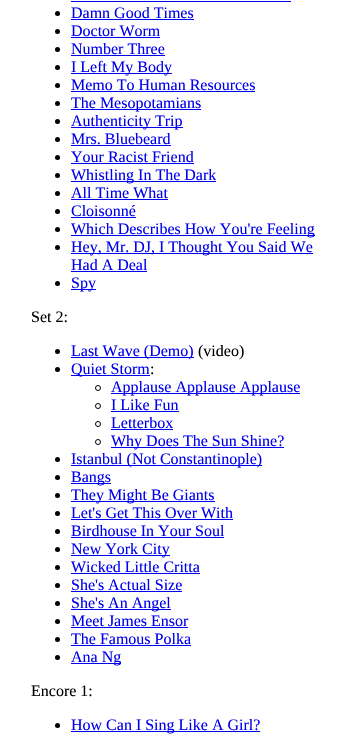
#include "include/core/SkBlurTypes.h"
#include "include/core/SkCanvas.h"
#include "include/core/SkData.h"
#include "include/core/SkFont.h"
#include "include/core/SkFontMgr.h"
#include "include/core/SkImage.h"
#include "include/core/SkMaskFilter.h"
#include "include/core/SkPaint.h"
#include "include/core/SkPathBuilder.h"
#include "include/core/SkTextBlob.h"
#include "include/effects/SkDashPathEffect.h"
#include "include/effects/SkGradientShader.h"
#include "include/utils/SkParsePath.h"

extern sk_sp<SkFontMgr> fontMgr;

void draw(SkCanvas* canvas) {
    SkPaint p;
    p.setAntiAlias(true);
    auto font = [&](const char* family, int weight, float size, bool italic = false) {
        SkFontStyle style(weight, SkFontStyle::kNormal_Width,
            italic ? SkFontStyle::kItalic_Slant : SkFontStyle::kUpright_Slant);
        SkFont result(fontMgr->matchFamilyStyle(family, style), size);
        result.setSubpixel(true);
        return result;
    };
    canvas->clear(0xFFFFFFFF);
    p.setColor(0xFF0000EE);
    canvas->drawRect(SkRect::MakeLTRB(71, 1, 291, 2), p);
    p.setColor(0xFF000000);
    canvas->drawCircle(57.5f, 13.5f, 2.5f, p);
    auto font1 = font("Liberation Serif", 400, 16);
    p.setColor(0xFF0000EE);
    canvas->drawString("Damn Good Times", 71, 18, font1, p);
    canvas->drawRect(SkRect::MakeLTRB(71, 19, 194, 20), p);
    p.setColor(0xFF000000);
    canvas->drawCircle(57.5f, 31.5f, 2.5f, p);
    p.setColor(0xFF0000EE);
    canvas->drawString("Doctor Worm", 71, 36, font1, p);
    canvas->drawRect(SkRect::MakeLTRB(71, 37, 160, 38), p);
    p.setColor(0xFF000000);
    canvas->drawCircle(57.5f, 49.5f, 2.5f, p);
    p.setColor(0xFF0000EE);
    canvas->drawString("Number Three", 71, 54, font1, p);
    canvas->drawRect(SkRect::MakeLTRB(71, 55, 165, 56), p);
    p.setColor(0xFF000000);
    canvas->drawCircle(57.5f, 67.5f, 2.5f, p);
    p.setColor(0xFF0000EE);
    canvas->drawRect(SkRect::MakeLTRB(71, 73, 172, 74), p);
    canvas->drawString("I Left My Body", 71, 72, font1, p);
    p.setColor(0xFF000000);
    canvas->drawCircle(57.5f, 85.5f, 2.5f, p);
    p.setColor(0xFF0000EE);
    canvas->drawString("Memo To Human Resources", 71, 90, font1, p);
    canvas->drawRect(SkRect::MakeLTRB(71, 91, 255, 92), p);
    p.setColor(0xFF000000);
    canvas->drawCircle(57.5f, 103.5f, 2.5f, p);
    p.setColor(0xFF0000EE);
    canvas->drawRect(SkRect::MakeLTRB(71, 109, 201, 110), p);
    canvas->drawString("The Mesopotamians", 71, 108, font1, p);
    p.setColor(0xFF000000);
    canvas->drawCircle(57.5f, 121.5f, 2.5f, p);
    p.setColor(0xFF0000EE);
    canvas->drawRect(SkRect::MakeLTRB(71, 127, 183, 128), p);
    canvas->drawString("Authenticity Trip", 71, 126, font1, p);
    p.setColor(0xFF000000);
    canvas->drawCircle(57.5f, 139.5f, 2.5f, p);
    p.setColor(0xFF0000EE);
    canvas->drawString("Mrs. Bluebeard", 71, 144, font1, p);
    canvas->drawRect(SkRect::MakeLTRB(71, 145, 171, 146), p);
    p.setColor(0xFF000000);
    canvas->drawCircle(57.5f, 157.5f, 2.5f, p);
    p.setColor(0xFF0000EE);
    canvas->drawString("Your Racist Friend", 71, 162, font1, p);
    canvas->drawRect(SkRect::MakeLTRB(71, 163, 194, 164), p);
    p.setColor(0xFF000000);
    canvas->drawCircle(57.5f, 175.5f, 2.5f, p);
    p.setColor(0xFF0000EE);
    canvas->drawRect(SkRect::MakeLTRB(71, 181, 216, 182), p);
    canvas->drawString("Whistling In The Dark", 71, 180, font1, p);
    p.setColor(0xFF000000);
    canvas->drawCircle(57.5f, 193.5f, 2.5f, p);
    p.setColor(0xFF0000EE);
    canvas->drawString("All Time What", 71, 198, font1, p);
    canvas->drawRect(SkRect::MakeLTRB(71, 199, 168, 200), p);
    p.setColor(0xFF000000);
    canvas->drawCircle(57.5f, 211.5f, 2.5f, p);
    p.setColor(0xFF0000EE);
    canvas->drawString("Cloisonné", 71, 216, font1, p);
    canvas->drawRect(SkRect::MakeLTRB(71, 217, 136, 218), p);
    p.setColor(0xFF000000);
    canvas->drawCircle(57.5f, 229.5f, 2.5f, p);
    p.setColor(0xFF0000EE);
    canvas->drawRect(SkRect::MakeLTRB(71, 235, 315, 236), p);
    canvas->drawString("Which Describes How You're Feeling", 71, 234, font1, p);
    p.setColor(0xFF000000);
    canvas->drawCircle(57.5f, 247.5f, 2.5f, p);
    p.setColor(0xFF0000EE);
    canvas->drawRect(SkRect::MakeLTRB(71, 253, 313, 254), p);
    canvas->drawString("Hey, Mr. DJ, I Thought You Said We", 71, 252, font1, p);
    canvas->drawString("Had A Deal", 71, 270, font1, p);
    canvas->drawRect(SkRect::MakeLTRB(71, 271, 147, 272), p);
    p.setColor(0xFF000000);
    canvas->drawCircle(57.5f, 283.5f, 2.5f, p);
    p.setColor(0xFF0000EE);
    canvas->drawRect(SkRect::MakeLTRB(71, 289, 96, 290), p);
    canvas->drawString("Spy", 71, 288, font1, p);
    p.setColor(0xFF000000);
    canvas->drawString("Set 2:", 31, 322, font1, p);
    canvas->drawCircle(57.5f, 351.5f, 2.5f, p);
    p.setColor(0xFF0000EE);
    canvas->drawRect(SkRect::MakeLTRB(71, 357, 194, 358), p);
    canvas->drawString("Last Wave (Demo)", 71, 356, font1, p);
    p.setColor(0xFF000000);
    canvas->drawString("(video)", 198, 356, font1, p);
    canvas->drawCircle(57.5f, 369.5f, 2.5f, p);
    p.setColor(0xFF0000EE);
    canvas->drawRect(SkRect::MakeLTRB(71, 375, 150, 376), p);
    canvas->drawString("Quiet Storm", 71, 374, font1, p);
    p.setColor(0xFF000000);
    canvas->drawString(":", 150, 374, font1, p);
    p.setStyle(SkPaint::kStroke_Style);
    p.setStrokeWidth(1);
    canvas->drawCircle(98, 388, 2.5f, p);
    p.setStyle(SkPaint::kFill_Style);
    p.setColor(0xFF0000EE);
    canvas->drawRect(SkRect::MakeLTRB(111, 393, 300, 394), p);
    canvas->drawString("Applause Applause Applause", 111, 392, font1, p);
    p.setStyle(SkPaint::kStroke_Style);
    p.setColor(0xFF000000);
    canvas->drawCircle(98, 406, 2.5f, p);
    p.setStyle(SkPaint::kFill_Style);
    p.setColor(0xFF0000EE);
    canvas->drawString("I Like Fun", 111, 410, font1, p);
    canvas->drawRect(SkRect::MakeLTRB(111, 411, 179, 412), p);
    p.setStyle(SkPaint::kStroke_Style);
    p.setColor(0xFF000000);
    canvas->drawCircle(98, 424, 2.5f, p);
    p.setStyle(SkPaint::kFill_Style);
    p.setColor(0xFF0000EE);
    canvas->drawString("Letterbox", 111, 428, font1, p);
    canvas->drawRect(SkRect::MakeLTRB(111, 429, 173, 430), p);
    p.setStyle(SkPaint::kStroke_Style);
    p.setColor(0xFF000000);
    canvas->drawCircle(98, 442, 2.5f, p);
    p.setStyle(SkPaint::kFill_Style);
    p.setColor(0xFF0000EE);
    canvas->drawRect(SkRect::MakeLTRB(111, 447, 284, 448), p);
    canvas->drawString("Why Does The Sun Shine?", 111, 446, font1, p);
    p.setColor(0xFF000000);
    canvas->drawCircle(57.5f, 459.5f, 2.5f, p);
    p.setColor(0xFF0000EE);
    canvas->drawRect(SkRect::MakeLTRB(71, 465, 262, 466), p);
    canvas->drawString("Istanbul (Not Constantinople)", 71, 464, font1, p);
    p.setColor(0xFF000000);
    canvas->drawCircle(57.5f, 477.5f, 2.5f, p);
    p.setColor(0xFF0000EE);
    canvas->drawRect(SkRect::MakeLTRB(71, 483, 111, 484), p);
    canvas->drawString("Bangs", 71, 482, font1, p);
    p.setColor(0xFF000000);
    canvas->drawCircle(57.5f, 495.5f, 2.5f, p);
    p.setColor(0xFF0000EE);
    canvas->drawRect(SkRect::MakeLTRB(71, 501, 215, 502), p);
    canvas->drawString("They Might Be Giants", 71, 500, font1, p);
    p.setColor(0xFF000000);
    canvas->drawCircle(57.5f, 513.5f, 2.5f, p);
    p.setColor(0xFF0000EE);
    canvas->drawString("Let's Get This Over With", 71, 518, font1, p);
    canvas->drawRect(SkRect::MakeLTRB(71, 519, 233, 520), p);
    p.setColor(0xFF000000);
    canvas->drawCircle(57.5f, 531.5f, 2.5f, p);
    p.setColor(0xFF0000EE);
    canvas->drawString("Birdhouse In Your Soul", 71, 536, font1, p);
    canvas->drawRect(SkRect::MakeLTRB(71, 537, 224, 538), p);
    p.setColor(0xFF000000);
    canvas->drawCircle(57.5f, 549.5f, 2.5f, p);
    p.setColor(0xFF0000EE);
    canvas->drawRect(SkRect::MakeLTRB(71, 555, 170, 556), p);
    canvas->drawString("New York City", 71, 554, font1, p);
    p.setColor(0xFF000000);
    canvas->drawCircle(57.5f, 567.5f, 2.5f, p);
    p.setColor(0xFF0000EE);
    canvas->drawString("Wicked Little Critta", 71, 572, font1, p);
    canvas->drawRect(SkRect::MakeLTRB(71, 573, 200, 574), p);
    p.setColor(0xFF000000);
    canvas->drawCircle(57.5f, 585.5f, 2.5f, p);
    p.setColor(0xFF0000EE);
    canvas->drawString("She's Actual Size", 71, 590, font1, p);
    canvas->drawRect(SkRect::MakeLTRB(71, 591, 182, 592), p);
    p.setColor(0xFF000000);
    canvas->drawCircle(57.5f, 603.5f, 2.5f, p);
    p.setColor(0xFF0000EE);
    canvas->drawRect(SkRect::MakeLTRB(71, 609, 171, 610), p);
    canvas->drawString("She's An Angel", 71, 608, font1, p);
    p.setColor(0xFF000000);
    canvas->drawCircle(57.5f, 621.5f, 2.5f, p);
    p.setColor(0xFF0000EE);
    canvas->drawString("Meet James Ensor", 71, 626, font1, p);
    canvas->drawRect(SkRect::MakeLTRB(71, 627, 188, 628), p);
    p.setColor(0xFF000000);
    canvas->drawCircle(57.5f, 639.5f, 2.5f, p);
    p.setColor(0xFF0000EE);
    canvas->drawString("The Famous Polka", 71, 644, font1, p);
    canvas->drawRect(SkRect::MakeLTRB(71, 645, 191, 646), p);
    p.setColor(0xFF000000);
    canvas->drawCircle(57.5f, 657.5f, 2.5f, p);
    p.setColor(0xFF0000EE);
    canvas->drawRect(SkRect::MakeLTRB(71, 663, 121, 664), p);
    canvas->drawString("Ana Ng", 71, 662, font1, p);
    p.setColor(0xFF000000);
    canvas->drawString("Encore 1:", 31, 696, font1, p);
    canvas->drawCircle(57.5f, 725.5f, 2.5f, p);
    p.setColor(0xFF0000EE);
    canvas->drawRect(SkRect::MakeLTRB(71, 731, 260, 732), p);
    canvas->drawString("How Can I Sing Like A Girl?", 71, 730, font1, p);
}
